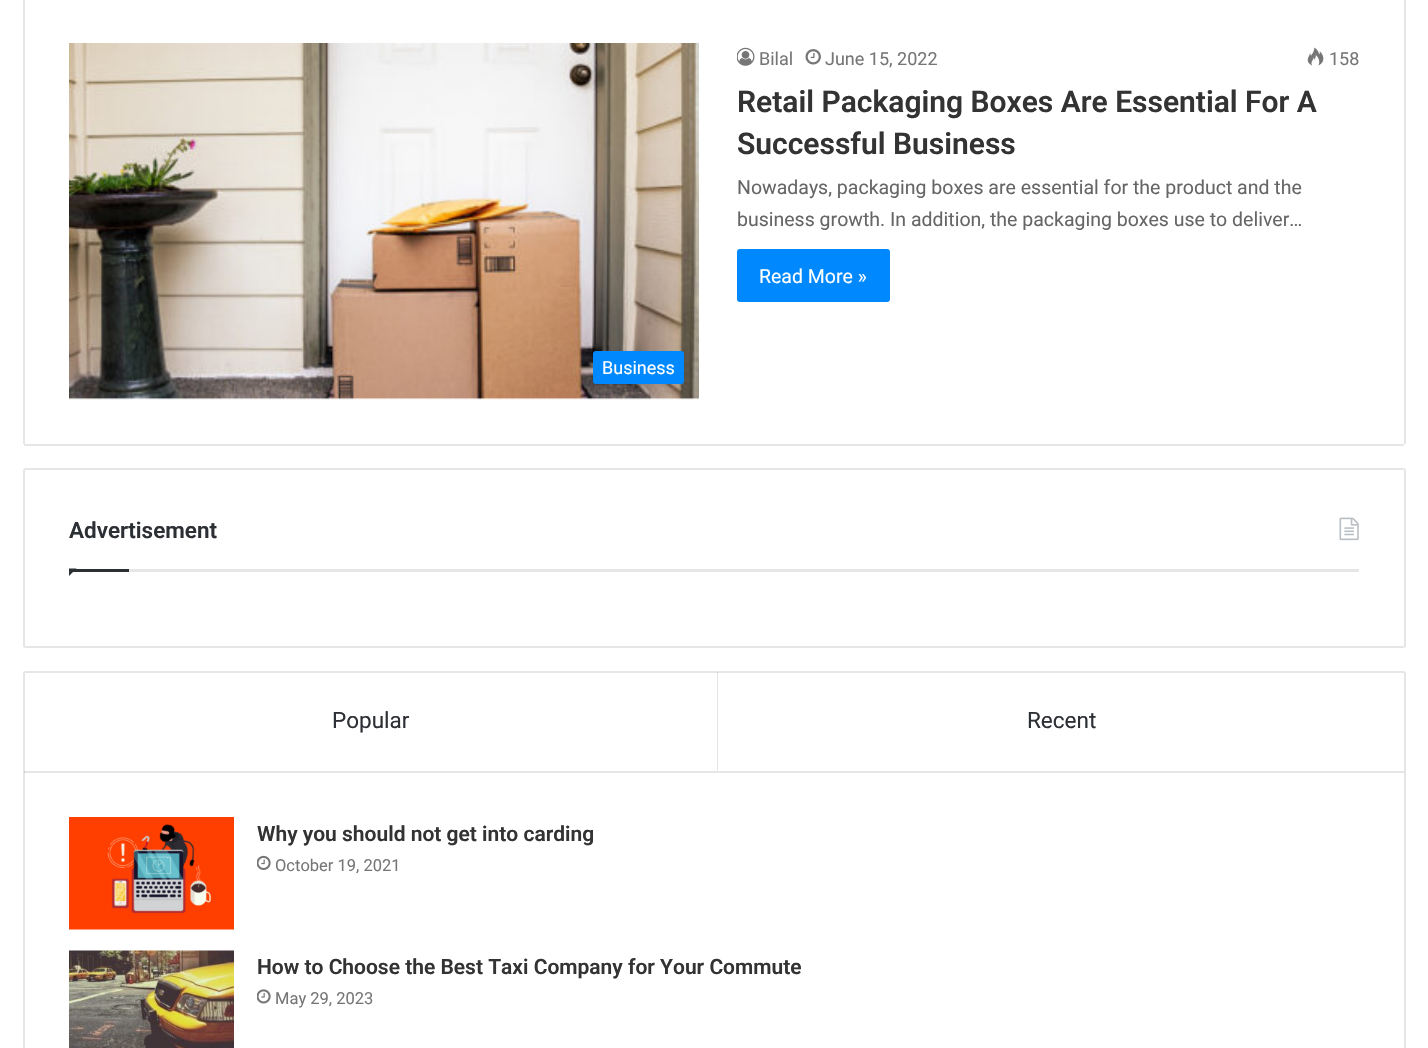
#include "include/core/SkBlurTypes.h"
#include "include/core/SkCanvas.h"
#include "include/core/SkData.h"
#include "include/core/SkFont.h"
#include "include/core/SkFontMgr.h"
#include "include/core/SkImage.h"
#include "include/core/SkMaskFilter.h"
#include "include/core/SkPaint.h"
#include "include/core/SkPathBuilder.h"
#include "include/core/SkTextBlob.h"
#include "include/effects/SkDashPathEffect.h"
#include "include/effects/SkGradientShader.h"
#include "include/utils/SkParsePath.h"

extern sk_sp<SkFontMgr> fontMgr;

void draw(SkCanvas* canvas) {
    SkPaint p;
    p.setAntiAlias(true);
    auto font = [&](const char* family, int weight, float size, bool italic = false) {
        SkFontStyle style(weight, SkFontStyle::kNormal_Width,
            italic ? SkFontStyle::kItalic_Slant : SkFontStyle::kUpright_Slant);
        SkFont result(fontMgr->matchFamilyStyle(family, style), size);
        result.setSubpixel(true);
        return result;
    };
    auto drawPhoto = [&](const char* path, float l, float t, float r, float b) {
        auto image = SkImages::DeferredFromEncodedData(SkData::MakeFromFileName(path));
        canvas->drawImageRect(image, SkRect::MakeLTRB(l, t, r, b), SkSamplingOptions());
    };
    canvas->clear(0xFFFFFFFF);
    {
        const struct { float l, t, r, b; SkColor color; } items[] = {
            {1404, 0, 1406, 444, 0xFFE6E6E6},
            {24, 444, 1404, 446, 0xFFE6E6E6},
            {23, 0, 25, 444, 0xFFE6E6E6},
        };
        for (auto [l, t, r, b, color] : items) {
            p.setColor(color);
            canvas->drawRect(SkRect::MakeLTRB(l, t, r, b), p);
        }
    }
    drawPhoto("media/1.png", 737, 47, 755, 66);
    auto font1 = font("Roboto", 400, 18);
    p.setColor(0xFF767676);
    canvas->drawString("Bilal", 759, 65, font1, p);
    drawPhoto("media/2.png", 805, 49, 821, 65);
    canvas->drawString("June 15, 2022", 825, 65, font1, p);
    drawPhoto("media/3.png", 1307, 47, 1324, 66);
    canvas->drawString("158", 1329, 65, font1, p);
    auto font2 = font("Roboto", 600, 30);
    p.setColor(0xFF333333);
    canvas->drawString("Retail Packaging Boxes Are Essential For A", 737, 112, font2, p);
    canvas->drawString("Successful Business", 737, 154, font2, p);
    auto font3 = font("Roboto", 400, 19.5f);
    p.setColor(0xFF666666);
    canvas->drawString("Nowadays, packaging boxes are essential for the product and the", 737, 194, font3, p);
    canvas->drawString("business growth. In addition, the packaging boxes use to deliver…", 737, 226, font3, p);
    p.setColor(0xFF0088FF);
    canvas->drawRoundRect(SkRect::MakeLTRB(737, 249, 890, 302), 3, 3, p);
    p.setColor(0xFFFFFFFF);
    canvas->drawString("Read More »", 759, 283, font3, p);
    drawPhoto("media/4.png", 69, 43, 699, 400);
    p.setColor(0xFF0088FF);
    canvas->drawRoundRect(SkRect::MakeLTRB(593, 351, 684, 384), 3, 3, p);
    p.setColor(0xFFFFFFFF);
    canvas->drawString("Business", 602, 374, font1, p);
    p.setStyle(SkPaint::kStroke_Style);
    p.setStrokeWidth(2);
    p.setColor(0xFFE6E6E6);
    canvas->drawRoundRect(SkRect::MakeLTRB(24, 469, 1405, 647), 2, 2, p);
    p.setStyle(SkPaint::kFill_Style);
    canvas->drawRect(SkRect::MakeLTRB(129, 569, 1359, 572), p);
    auto font4 = font("Roboto", 600, 22.5f);
    p.setColor(0xFF2C2F34);
    canvas->drawString("Advertisement", 69, 538, font4, p);
    drawPhoto("media/5.png", 1339, 517, 1359, 541);
    canvas->drawPath(SkPathBuilder().moveTo(69, 568.5f).lineTo(76.5f, 568.5f).lineTo(69, 576).close().detach(), p);
    canvas->drawRect(SkRect::MakeLTRB(69, 569, 129, 572), p);
    p.setStyle(SkPaint::kStroke_Style);
    p.setColor(0xFFE6E6E6);
    canvas->drawRoundRect(SkRect::MakeLTRB(24, 672, 1405, 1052), 2, 2, p);
    p.setStyle(SkPaint::kFill_Style);
    p.setColor(0x1A000000);
    canvas->drawRect(SkRect::MakeLTRB(24, 771, 1404, 773), p);
    canvas->drawPath(SkPathBuilder().moveTo(718, 672).lineTo(718, 771).lineTo(717, 770).lineTo(717, 672).close().detach(), p);
    auto font5 = font("Roboto", 400, 22.5f);
    p.setColor(0xFF2C2F34);
    canvas->drawString("Popular", 332, 728, font5, p);
    canvas->drawString("Recent", 1027, 728, font5, p);
    drawPhoto("media/6.png", 69, 817, 234, 930);
    auto font6 = font("Roboto", 600, 21);
    p.setColor(0xFF333333);
    canvas->drawString("Why you should not get into carding", 257, 841, font6, p);
    drawPhoto("media/7.png", 257, 855, 271, 870);
    auto font7 = font("Roboto", 400, 16.5f);
    p.setColor(0xFF767676);
    canvas->drawString("October 19, 2021", 275, 871, font7, p);
    drawPhoto("media/8.png", 69, 950, 234, 1048);
    p.setColor(0xFF333333);
    canvas->drawString("How to Choose the Best Taxi Company for Your Commute", 257, 974, font6, p);
    drawPhoto("media/9.png", 257, 989, 271, 1004);
    p.setColor(0xFF767676);
    canvas->drawString("May 29, 2023", 275, 1004, font7, p);
}
